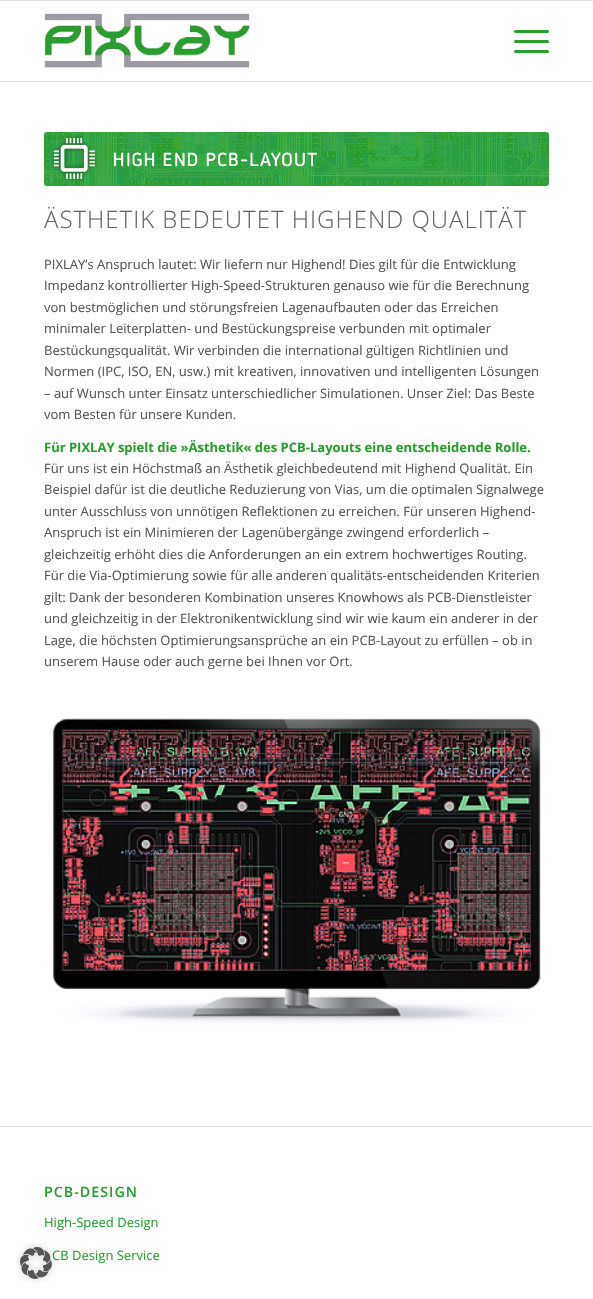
#include "include/core/SkBlurTypes.h"
#include "include/core/SkCanvas.h"
#include "include/core/SkData.h"
#include "include/core/SkFont.h"
#include "include/core/SkFontMgr.h"
#include "include/core/SkImage.h"
#include "include/core/SkMaskFilter.h"
#include "include/core/SkPaint.h"
#include "include/core/SkPathBuilder.h"
#include "include/core/SkTextBlob.h"
#include "include/effects/SkDashPathEffect.h"
#include "include/effects/SkGradientShader.h"
#include "include/utils/SkParsePath.h"

extern sk_sp<SkFontMgr> fontMgr;

void draw(SkCanvas* canvas) {
    SkPaint p;
    p.setAntiAlias(true);
    auto font = [&](const char* family, int weight, float size, bool italic = false) {
        SkFontStyle style(weight, SkFontStyle::kNormal_Width,
            italic ? SkFontStyle::kItalic_Slant : SkFontStyle::kUpright_Slant);
        SkFont result(fontMgr->matchFamilyStyle(family, style), size);
        result.setSubpixel(true);
        return result;
    };
    auto drawTracked = [&](const char* s, float x, float y, const SkFont& font, const SkPaint& ink, float letter, float word) {
        std::vector<SkGlyphID> glyphs(font.countText(s, strlen(s), SkTextEncoding::kUTF8));
        std::vector<float> xs(glyphs.size());
        font.textToGlyphs(s, strlen(s), SkTextEncoding::kUTF8, glyphs);
        font.getXPos(glyphs, xs, x);
        float extra = 0;
        for (size_t i = 0; i < glyphs.size(); i++) {
            xs[i] += extra;
            extra += letter + word * (glyphs[i] == font.unicharToGlyph(' '));
        }
        canvas->drawTextBlob(SkTextBlob::MakeFromPosHGlyphs(glyphs, xs, y, font), 0, 0, ink);
    };
    auto drawPhoto = [&](const char* path, float l, float t, float r, float b) {
        auto image = SkImages::DeferredFromEncodedData(SkData::MakeFromFileName(path));
        canvas->drawImageRect(image, SkRect::MakeLTRB(l, t, r, b), SkSamplingOptions());
    };
    canvas->clear(0xFFFFFFFF);
    auto font1 = font("Open Sans", 400, 13);
    p.setColor(0xFF299E2F);
    canvas->drawString("CB Design Service", 52, 1260, font1, p);
    drawPhoto("media/1.png", 16, 1243, 56, 1283);
    p.setColor(0xFFE1E1E1);
    canvas->drawRect(SkRect::MakeLTRB(0, 0, 593, 1), p);
    canvas->drawRect(SkRect::MakeLTRB(0, 81, 593, 82), p);
    drawPhoto("media/2.png", 44, 13, 250, 68);
    p.setColor(0xFF299E2F);
    canvas->drawRoundRect(SkRect::MakeLTRB(514, 40, 549, 43), 1.5f, 1.5f, p);
    canvas->drawRoundRect(SkRect::MakeLTRB(514, 30, 549, 33), 1.5f, 1.5f, p);
    canvas->drawRoundRect(SkRect::MakeLTRB(514, 50, 549, 53), 1.5f, 1.5f, p);
    drawPhoto("media/3.png", 44, 132, 549, 186);
    auto font2 = font("Open Sans", 300, 24);
    p.setColor(0xFF666666);
    drawTracked("ÄSTHETIK BEDEUTET HIGHEND QUALITÄT", 44, 228, font2, p, 1, 0);
    p.setColor(0xFF555555);
    {
        const struct { const char* s; float x, y; } items[] = {
            {"PIXLAY’s Anspruch lautet: Wir liefern nur Highend! Dies gilt für die Entwicklung", 44, 269},
            {"Impedanz kontrollierter High-Speed-Strukturen genauso wie für die Berechnung", 44, 290},
            {"von bestmöglichen und störungsfreien Lagenaufbauten oder das Erreichen", 44, 312},
            {"minimaler Leiterplatten- und Bestückungspreise verbunden mit optimaler", 44, 333},
            {"Bestückungsqualität. Wir verbinden die international gültigen Richtlinien und", 44, 355},
            {"Normen (IPC, ISO, EN, usw.) mit kreativen, innovativen und intelligenten Lösungen", 44, 376},
            {"– auf Wunsch unter Einsatz unterschiedlicher Simulationen. Unser Ziel: Das Beste", 44, 398},
            {"vom Besten für unsere Kunden.", 44, 419},
        };
        for (auto [s, x, y] : items) {
            canvas->drawString(s, x, y, font1, p);
        }
    }
    auto font3 = font("Open Sans", 700, 13);
    p.setColor(0xFF299E2F);
    canvas->drawString("Für PIXLAY spielt die »Ästhetik« des PCB-Layouts eine entscheidende Rolle.", 44, 452, font3, p);
    p.setColor(0xFF555555);
    {
        const struct { const char* s; float x, y; } items[] = {
            {"Für uns ist ein Höchstmaß an Ästhetik gleichbedeutend mit Highend Qualität. Ein", 44, 473},
            {"Beispiel dafür ist die deutliche Reduzierung von Vias, um die optimalen Signalwege", 44, 494},
            {"unter Ausschluss von unnötigen Reflektionen zu erreichen. Für unseren Highend-", 44, 516},
            {"Anspruch ist ein Minimieren der Lagenübergänge zwingend erforderlich –", 44, 537},
            {"gleichzeitig erhöht dies die Anforderungen an ein extrem hochwertiges Routing.", 44, 559},
            {"Für die Via-Optimierung sowie für alle anderen qualitäts-entscheidenden Kriterien", 44, 580},
            {"gilt: Dank der besonderen Kombination unseres Knowhows als PCB-Dienstleister", 44, 602},
            {"und gleichzeitig in der Elektronikentwicklung sind wir wie kaum ein anderer in der", 44, 623},
            {"Lage, die höchsten Optimierungsansprüche an ein PCB-Layout zu erfüllen – ob in", 44, 645},
            {"unserem Hause oder auch gerne bei Ihnen vor Ort.", 44, 666},
        };
        for (auto [s, x, y] : items) {
            canvas->drawString(s, x, y, font1, p);
        }
    }
    drawPhoto("media/4.png", 52, 717, 541, 1025);
    p.setColor(0xFFE1E1E1);
    canvas->drawRect(SkRect::MakeLTRB(0, 1126, 593, 1127), p);
    auto font4 = font("Open Sans", 600, 14.25f);
    p.setColor(0xFF299E2F);
    drawTracked("PCB-DESIGN", 44, 1197, font4, p, 1, 0);
    canvas->drawString("High-Speed Design", 44, 1227, font1, p);
}
